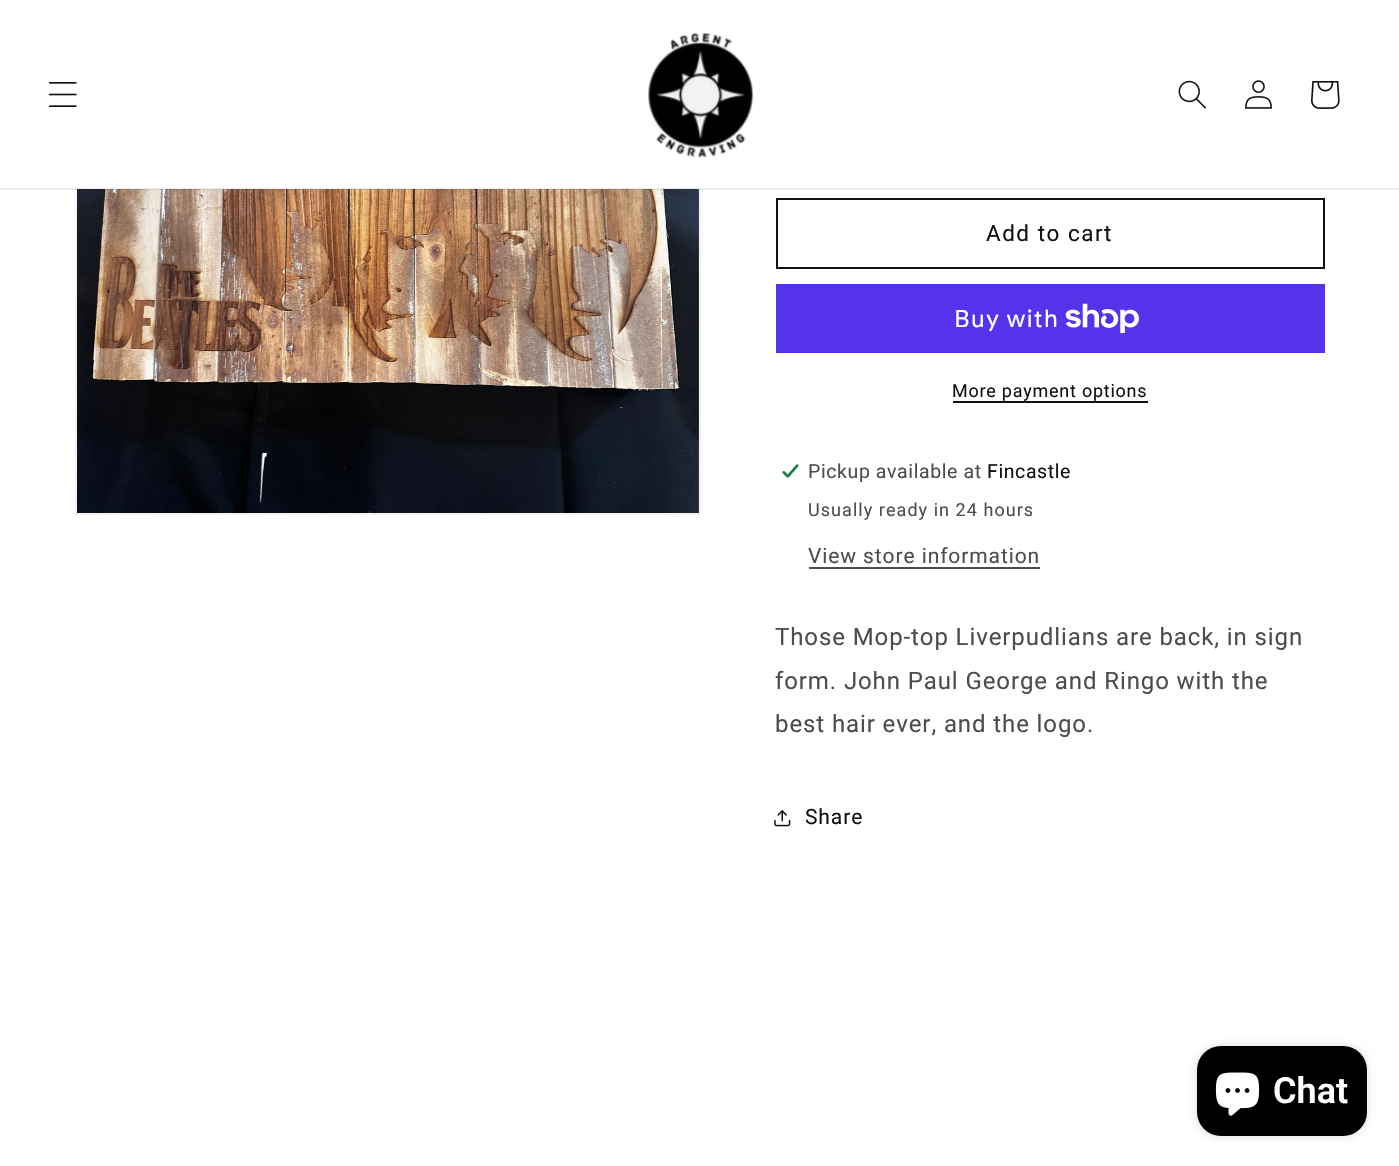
#include "include/core/SkBlurTypes.h"
#include "include/core/SkCanvas.h"
#include "include/core/SkData.h"
#include "include/core/SkFont.h"
#include "include/core/SkFontMgr.h"
#include "include/core/SkImage.h"
#include "include/core/SkMaskFilter.h"
#include "include/core/SkPaint.h"
#include "include/core/SkPathBuilder.h"
#include "include/core/SkTextBlob.h"
#include "include/effects/SkDashPathEffect.h"
#include "include/effects/SkGradientShader.h"
#include "include/utils/SkParsePath.h"

extern sk_sp<SkFontMgr> fontMgr;

void draw(SkCanvas* canvas) {
    SkPaint p;
    p.setAntiAlias(true);
    auto font = [&](const char* family, int weight, float size, bool italic = false) {
        SkFontStyle style(weight, SkFontStyle::kNormal_Width,
            italic ? SkFontStyle::kItalic_Slant : SkFontStyle::kUpright_Slant);
        SkFont result(fontMgr->matchFamilyStyle(family, style), size);
        result.setSubpixel(true);
        return result;
    };
    auto drawTracked = [&](const char* s, float x, float y, const SkFont& font, const SkPaint& ink, float letter, float word) {
        std::vector<SkGlyphID> glyphs(font.countText(s, strlen(s), SkTextEncoding::kUTF8));
        std::vector<float> xs(glyphs.size());
        font.textToGlyphs(s, strlen(s), SkTextEncoding::kUTF8, glyphs);
        font.getXPos(glyphs, xs, x);
        float extra = 0;
        for (size_t i = 0; i < glyphs.size(); i++) {
            xs[i] += extra;
            extra += letter + word * (glyphs[i] == font.unicharToGlyph(' '));
        }
        canvas->drawTextBlob(SkTextBlob::MakeFromPosHGlyphs(glyphs, xs, y, font), 0, 0, ink);
    };
    auto drawPhoto = [&](const char* path, float l, float t, float r, float b) {
        auto image = SkImages::DeferredFromEncodedData(SkData::MakeFromFileName(path));
        canvas->drawImageRect(image, SkRect::MakeLTRB(l, t, r, b), SkSamplingOptions());
    };
    canvas->clear(0xFFFFFFFF);
    p.setStyle(SkPaint::kStroke_Style);
    p.setStrokeWidth(2);
    p.setColor(0xFFF3F3F3);
    canvas->drawRect(SkRect::MakeLTRB(76, 46, 700, 514), p);
    p.setStyle(SkPaint::kFill_Style);
    p.setColor(0xFFFFFFFF);
    canvas->drawRect(SkRect::MakeLTRB(75, 45, 701, 189), p);
    drawPhoto("media/6.png", 77, 189, 699, 513);
    p.setColor(0x14121212);
    canvas->drawRect(SkRect::MakeLTRB(0, 188, 1399, 190), p);
    drawPhoto("media/1.png", 48, 82, 77, 107);
    drawPhoto("media/2.png", 647, 32, 754, 158);
    drawPhoto("media/3.png", 1178, 80, 1206, 109);
    drawPhoto("media/4.png", 1245, 80, 1272, 109);
    drawPhoto("media/5.png", 1311, 81, 1340, 109);
    p.setStyle(SkPaint::kStroke_Style);
    p.setColor(0xFF121212);
    canvas->drawRect(SkRect::MakeLTRB(777, 199, 1324, 268), p);
    auto font1 = font("Roboto", 400, 22.5f);
    p.setStyle(SkPaint::kFill_Style);
    drawTracked("Add to cart", 986, 241, font1, p, 1.5f, 0);
    p.setColor(0xFF5433EB);
    canvas->drawRect(SkRect::MakeLTRB(776, 284, 1325, 353), p);
    auto font2 = font("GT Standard", 400, 24);
    p.setColor(0xFFFFFFFF);
    drawTracked("Buy with", 954, 327, font2, p, 0.9f, 0);
    drawPhoto("media/7.png", 1065, 303, 1139, 333);
    auto font3 = font("Roboto", 400, 18);
    p.setColor(0xFF121212);
    drawTracked("More payment options", 952, 397, font3, p, 0.75f, 0);
    canvas->drawRect(SkRect::MakeLTRB(953, 401, 1148, 403), p);
    drawPhoto("media/8.png", 781, 464, 799, 478);
    auto font4 = font("Roboto", 400, 19.5f);
    p.setColor(0xFF4D4D4D);
    drawTracked("Pickup available at", 808, 478, font4, p, 0.6f, 0);
    p.setColor(0xFF121212);
    drawTracked("Fincastle", 987, 478, font4, p, 0.6f, 0);
    p.setColor(0xFF4D4D4D);
    drawTracked("Usually ready in 24 hours", 808, 516, font3, p, 1.05f, 0);
    auto font5 = font("Roboto", 400, 21);
    drawTracked("View store information", 808, 563, font5, p, 0.9f, 0);
    canvas->drawRect(SkRect::MakeLTRB(809, 567, 1040, 569), p);
    auto font6 = font("Roboto", 400, 24);
    {
        const struct { const char* s; float x, y; } items[] = {
            {"Those Mop-top Liverpudlians are back, in sign", 775, 645},
            {"form. John Paul George and Ringo with the", 775, 689},
            {"best hair ever, and the logo.", 775, 732},
        };
        for (auto [s, x, y] : items) {
            drawTracked(s, x, y, font6, p, 0.9f, 0);
        }
    }
    drawPhoto("media/9.png", 774, 810, 791, 827);
    p.setColor(0xFF121212);
    drawTracked("Share", 805, 824, font5, p, 0.9f, 0);
    p.setColor(0x26000000);
    p.setMaskFilter(SkMaskFilter::MakeBlur(kNormal_SkBlurStyle, 4));
    canvas->drawRoundRect(SkRect::MakeLTRB(1197, 1046, 1367, 1136), 24, 24, p);
    p.setMaskFilter(nullptr);
    p.setColor(0xFF000000);
    canvas->drawRoundRect(SkRect::MakeLTRB(1197, 1046, 1367, 1136), 24, 24, p);
    drawPhoto("media/10.png", 1215, 1072, 1260, 1116);
    auto font7 = font("Roboto", 600, 36);
    p.setColor(0xFFFFFFFF);
    canvas->drawString("Chat", 1273, 1103, font7, p);
}
